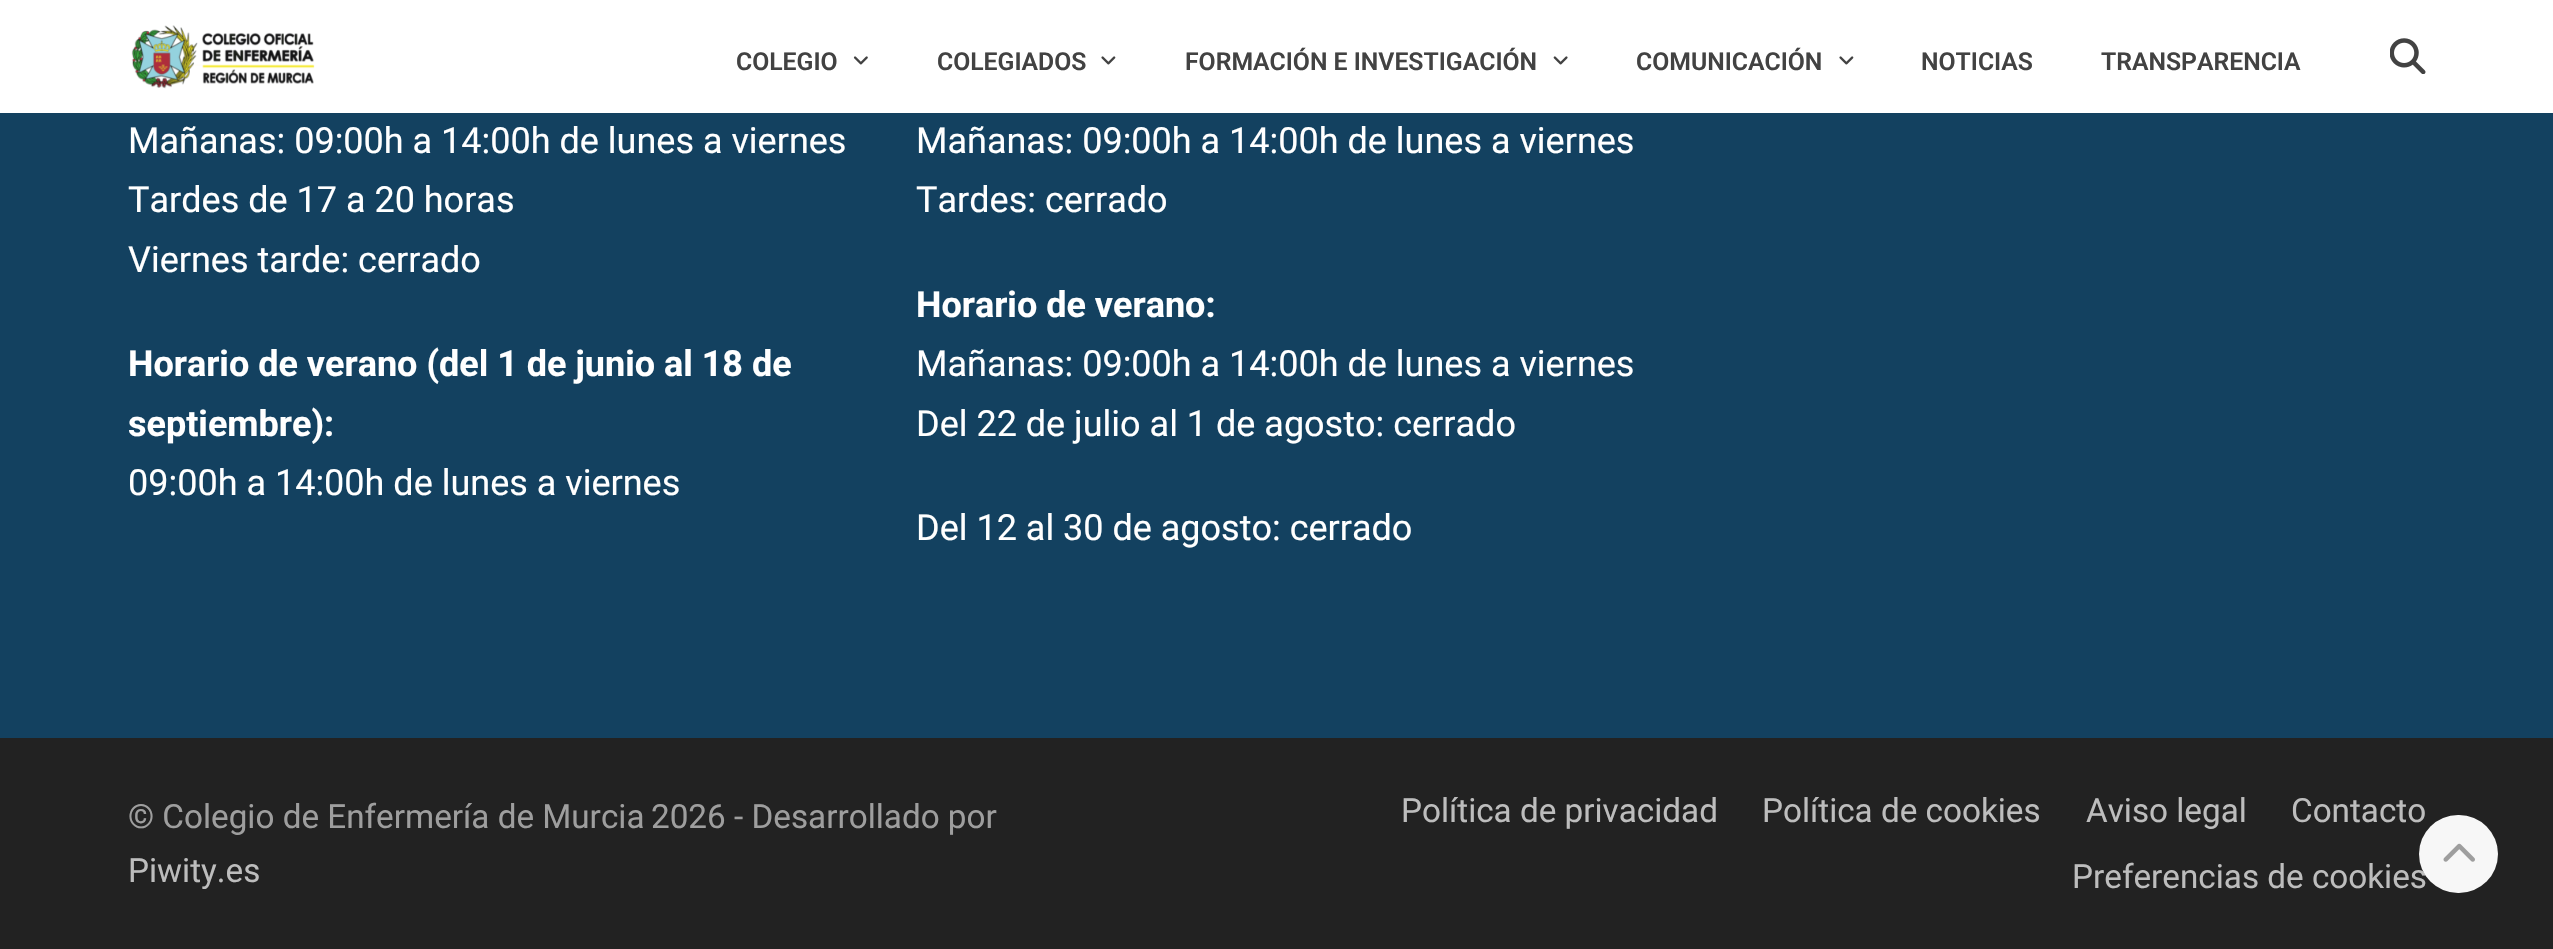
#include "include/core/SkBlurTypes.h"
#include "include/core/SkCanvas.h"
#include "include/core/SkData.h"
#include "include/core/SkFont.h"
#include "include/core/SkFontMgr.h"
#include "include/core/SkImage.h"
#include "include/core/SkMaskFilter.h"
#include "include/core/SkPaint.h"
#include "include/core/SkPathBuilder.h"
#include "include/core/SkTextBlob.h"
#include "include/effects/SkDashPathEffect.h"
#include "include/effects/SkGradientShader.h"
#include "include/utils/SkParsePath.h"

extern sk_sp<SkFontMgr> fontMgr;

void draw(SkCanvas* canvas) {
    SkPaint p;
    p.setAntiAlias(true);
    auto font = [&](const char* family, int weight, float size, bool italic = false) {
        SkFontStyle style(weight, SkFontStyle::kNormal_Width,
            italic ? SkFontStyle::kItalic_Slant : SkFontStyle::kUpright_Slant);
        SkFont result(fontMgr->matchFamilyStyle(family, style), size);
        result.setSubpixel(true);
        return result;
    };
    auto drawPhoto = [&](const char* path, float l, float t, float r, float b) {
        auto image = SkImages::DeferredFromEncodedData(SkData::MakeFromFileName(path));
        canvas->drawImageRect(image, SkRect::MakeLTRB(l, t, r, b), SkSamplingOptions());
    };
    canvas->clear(0xFF222222);
    p.setColor(0xFFFFFFFF);
    canvas->drawRect(SkRect::MakeLTRB(0, 0, 2553, 113), p);
    drawPhoto("media/1.png", 131, 25, 315, 89);
    auto font1 = font("Roboto", 600, 24.75f);
    p.setColor(0xFF424242);
    canvas->drawString("COLEGIO", 736, 70, font1, p);
    drawPhoto("media/2.png", 853, 56, 868, 65);
    canvas->drawString("COLEGIADOS", 937, 70, font1, p);
    drawPhoto("media/3.png", 1101, 56, 1116, 65);
    canvas->drawString("FORMACIÓN E INVESTIGACIÓN", 1185, 70, font1, p);
    drawPhoto("media/4.png", 1553, 56, 1568, 65);
    canvas->drawString("COMUNICACIÓN", 1636, 70, font1, p);
    drawPhoto("media/3.png", 1839, 56, 1854, 65);
    canvas->drawString("NOTICIAS", 1921, 70, font1, p);
    canvas->drawString("TRANSPARENCIA", 2101, 70, font1, p);
    drawPhoto("media/5.png", 2390, 38, 2426, 74);
    p.setColor(0xFF134160);
    canvas->drawRect(SkRect::MakeLTRB(0, 113, 2553, 738), p);
    auto font2 = font("Roboto", 400, 36);
    p.setColor(0xFFFFFFFF);
    {
        const struct { const char* s; float x, y; } items[] = {
            {"Mañanas: 09:00h a 14:00h de lunes a viernes", 128, 153},
            {"Tardes de 17 a 20 horas", 128, 212},
            {"Viernes tarde: cerrado", 128, 272},
        };
        for (auto [s, x, y] : items) {
            canvas->drawString(s, x, y, font2, p);
        }
    }
    auto font3 = font("Roboto", 700, 36);
    canvas->drawString("Horario de verano (del 1 de junio al 18 de", 128, 376, font3, p);
    canvas->drawString("septiembre):", 128, 436, font3, p);
    {
        const struct { const char* s; float x, y; } items[] = {
            {"09:00h a 14:00h de lunes a viernes", 128, 495},
            {"Mañanas: 09:00h a 14:00h de lunes a viernes", 916, 153},
            {"Tardes: cerrado", 916, 212},
        };
        for (auto [s, x, y] : items) {
            canvas->drawString(s, x, y, font2, p);
        }
    }
    canvas->drawString("Horario de verano:", 916, 317, font3, p);
    {
        const struct { const char* s; float x, y; } items[] = {
            {"Mañanas: 09:00h a 14:00h de lunes a viernes", 916, 376},
            {"Del 22 de julio al 1 de agosto: cerrado", 916, 436},
            {"Del 12 al 30 de agosto: cerrado", 916, 540},
        };
        for (auto [s, x, y] : items) {
            canvas->drawString(s, x, y, font2, p);
        }
    }
    auto font4 = font("Roboto", 400, 33.25f);
    p.setColor(0xFF9E9E9E);
    canvas->drawString("© Colegio de Enfermería de Murcia", 128, 828, font4, p);
    canvas->drawString("2026 - Desarrollado por", 651, 828, font4, p);
    p.setColor(0xFFBDBDBD);
    {
        const struct { const char* s; float x, y; } items[] = {
            {"Piwity.es", 128, 882},
            {"Política de privacidad", 1401, 822},
            {"Política de cookies", 1762, 822},
            {"Aviso legal", 2086, 822},
            {"Contacto", 2291, 822},
            {"Preferencias de cookies", 2072, 888},
        };
        for (auto [s, x, y] : items) {
            canvas->drawString(s, x, y, font4, p);
        }
    }
    p.setColor(0xFFF7F7F7);
    canvas->drawRoundRect(SkRect::MakeLTRB(2419, 815, 2498, 893), 39, 39, p);
    drawPhoto("media/6.png", 2443, 843, 2475, 862);
}
